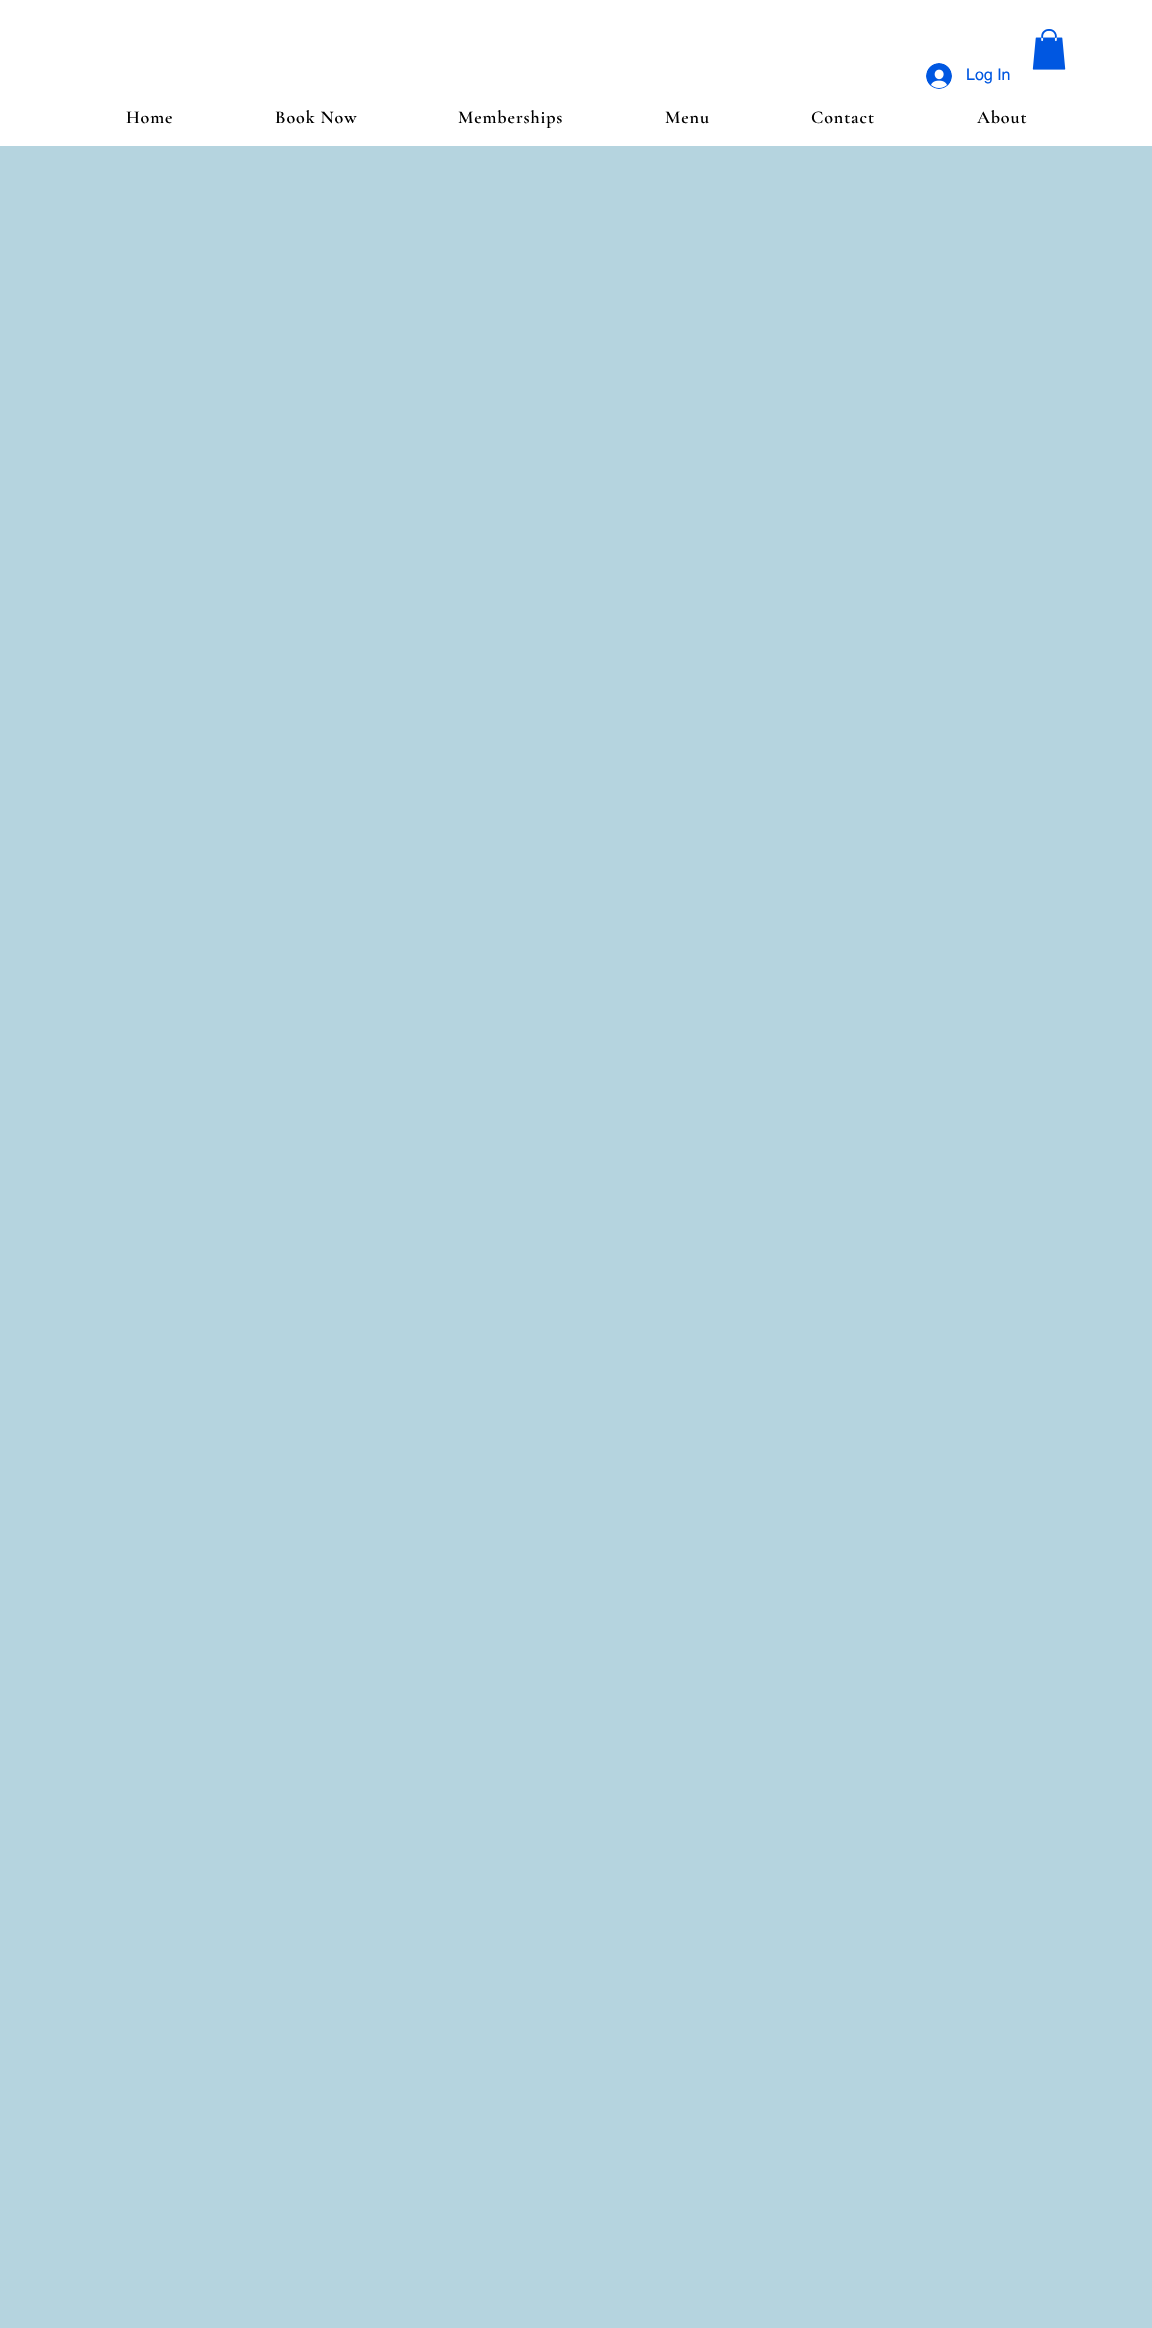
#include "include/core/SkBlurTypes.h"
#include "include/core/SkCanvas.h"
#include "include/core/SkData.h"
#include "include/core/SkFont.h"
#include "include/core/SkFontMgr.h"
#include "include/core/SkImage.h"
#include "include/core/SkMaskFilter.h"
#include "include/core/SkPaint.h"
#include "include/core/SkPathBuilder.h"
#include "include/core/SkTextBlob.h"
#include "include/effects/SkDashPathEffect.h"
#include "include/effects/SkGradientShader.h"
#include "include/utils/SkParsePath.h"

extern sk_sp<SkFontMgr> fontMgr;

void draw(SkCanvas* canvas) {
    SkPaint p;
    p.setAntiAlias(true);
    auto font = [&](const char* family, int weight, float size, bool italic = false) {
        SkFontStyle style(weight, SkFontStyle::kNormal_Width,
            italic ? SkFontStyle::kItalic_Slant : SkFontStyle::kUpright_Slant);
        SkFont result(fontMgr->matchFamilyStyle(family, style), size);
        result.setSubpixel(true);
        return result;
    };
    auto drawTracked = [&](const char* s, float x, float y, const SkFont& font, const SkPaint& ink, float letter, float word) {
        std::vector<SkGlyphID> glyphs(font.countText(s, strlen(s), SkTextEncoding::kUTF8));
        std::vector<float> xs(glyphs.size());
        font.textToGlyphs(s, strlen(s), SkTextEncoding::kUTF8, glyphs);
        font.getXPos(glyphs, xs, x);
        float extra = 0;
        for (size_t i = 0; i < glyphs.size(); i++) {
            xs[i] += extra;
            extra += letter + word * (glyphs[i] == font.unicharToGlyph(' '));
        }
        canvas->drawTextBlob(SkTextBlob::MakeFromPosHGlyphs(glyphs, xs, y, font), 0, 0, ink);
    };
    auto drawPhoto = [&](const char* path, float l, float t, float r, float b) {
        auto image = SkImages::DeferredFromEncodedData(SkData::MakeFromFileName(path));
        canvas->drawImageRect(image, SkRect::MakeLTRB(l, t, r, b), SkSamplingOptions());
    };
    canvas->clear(0xFFB5D4DF);
    p.setColor(0xFFFFFFFF);
    canvas->drawRect(SkRect::MakeLTRB(0, 0, 1152, 146), p);
    drawPhoto("media/1.png", 1032, 29, 1066, 70);
    drawPhoto("media/2.png", 926, 63, 952, 89);
    auto font1 = font("helvetica", 400, 16);
    p.setColor(0xFF0057E1);
    canvas->drawString("Log In", 966, 80, font1, p);
    auto font2 = font("Cormorant Garamond", 600, 18);
    p.setColor(0xFF000000);
    {
        const struct { const char* s; float x, y; } items[] = {
            {"Home", 126, 123},
            {"Book Now", 275, 123},
            {"Memberships", 458, 123},
            {"Menu", 665, 123},
            {"Contact", 811, 123},
            {"About", 977, 123},
        };
        for (auto [s, x, y] : items) {
            drawTracked(s, x, y, font2, p, 0.9f, 0);
        }
    }
}
